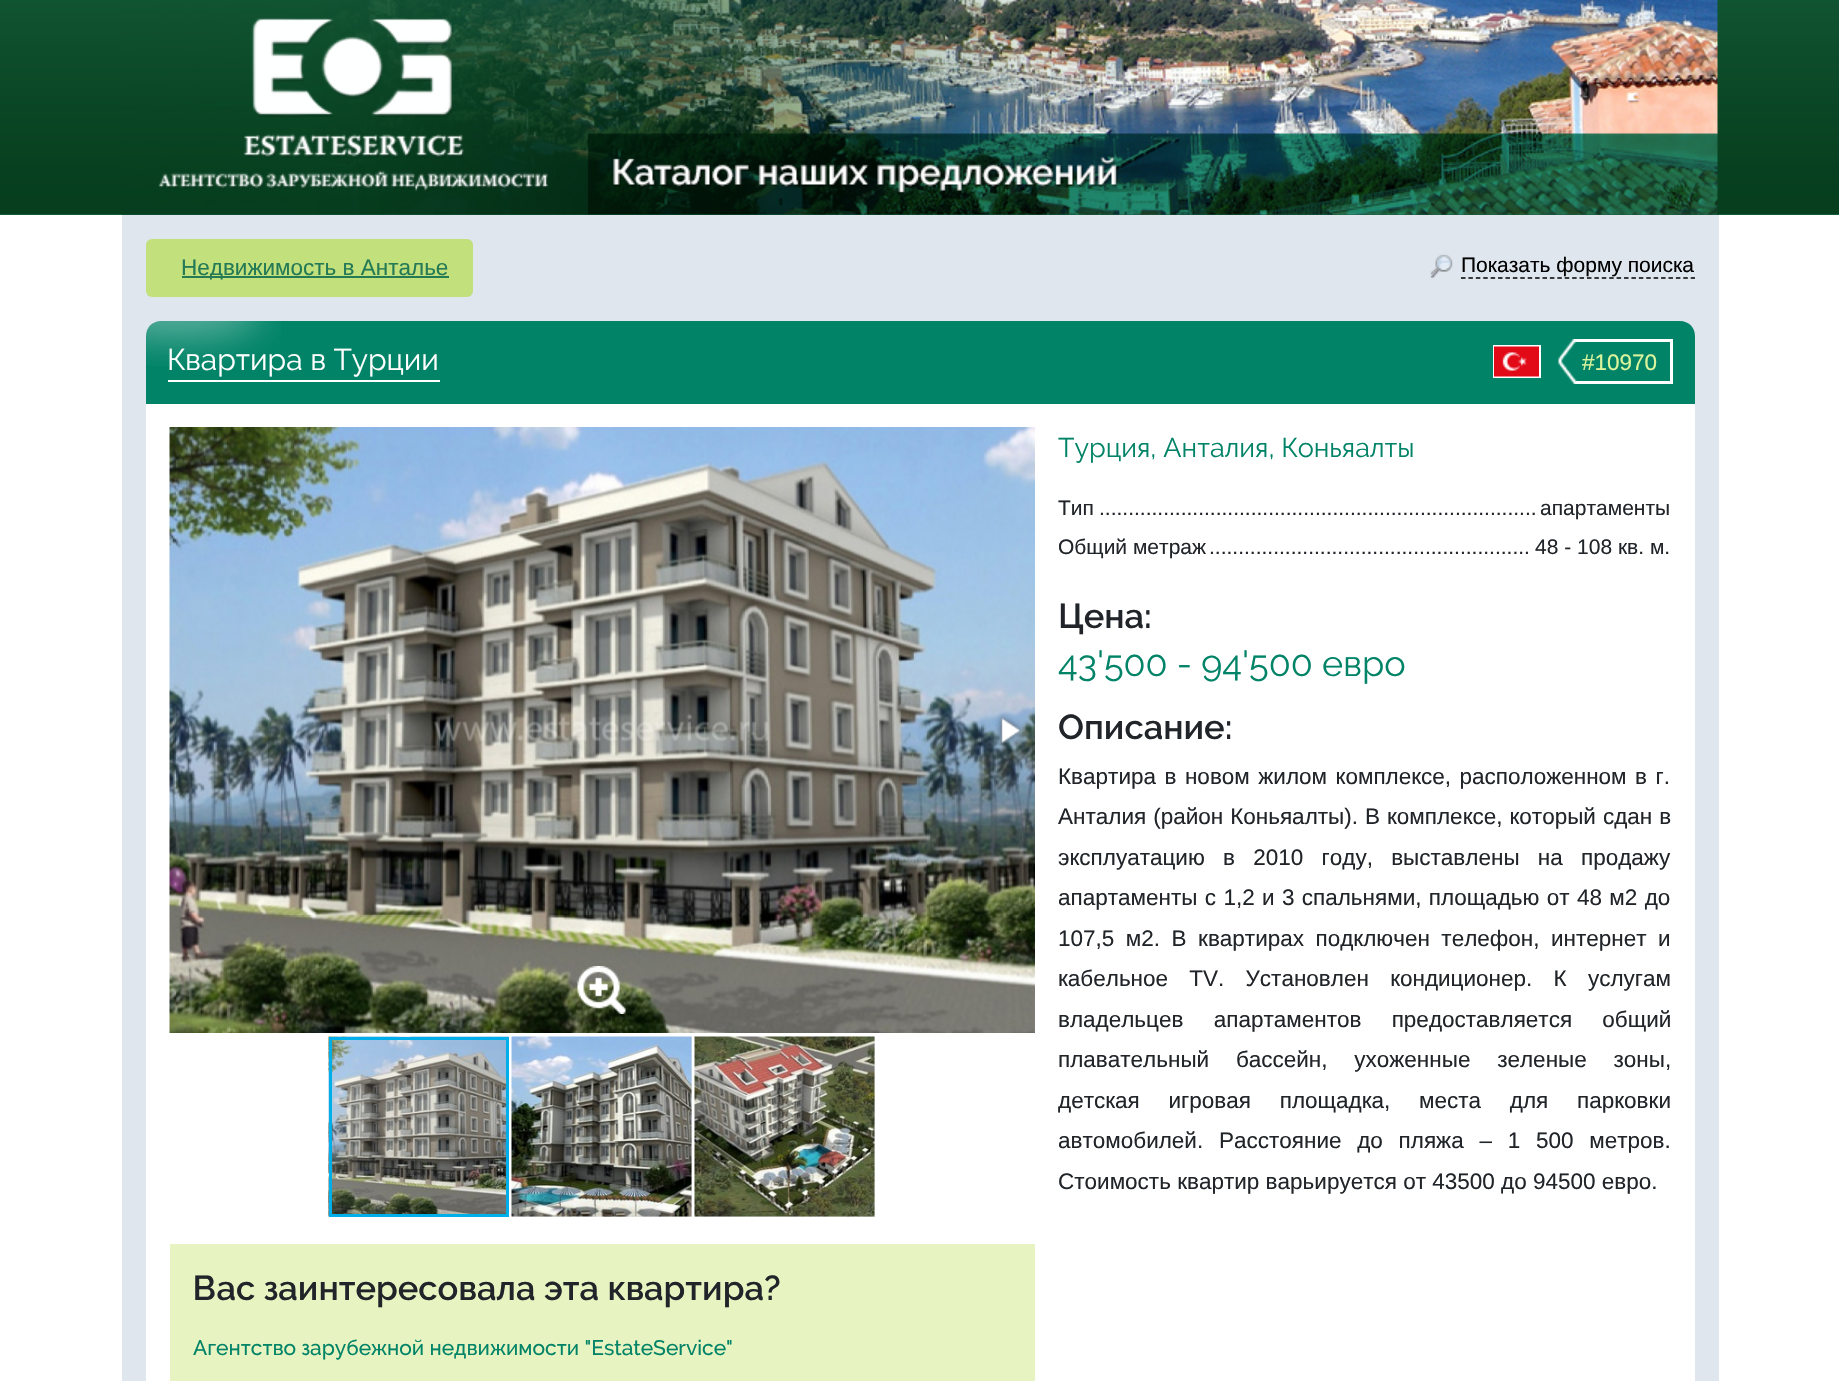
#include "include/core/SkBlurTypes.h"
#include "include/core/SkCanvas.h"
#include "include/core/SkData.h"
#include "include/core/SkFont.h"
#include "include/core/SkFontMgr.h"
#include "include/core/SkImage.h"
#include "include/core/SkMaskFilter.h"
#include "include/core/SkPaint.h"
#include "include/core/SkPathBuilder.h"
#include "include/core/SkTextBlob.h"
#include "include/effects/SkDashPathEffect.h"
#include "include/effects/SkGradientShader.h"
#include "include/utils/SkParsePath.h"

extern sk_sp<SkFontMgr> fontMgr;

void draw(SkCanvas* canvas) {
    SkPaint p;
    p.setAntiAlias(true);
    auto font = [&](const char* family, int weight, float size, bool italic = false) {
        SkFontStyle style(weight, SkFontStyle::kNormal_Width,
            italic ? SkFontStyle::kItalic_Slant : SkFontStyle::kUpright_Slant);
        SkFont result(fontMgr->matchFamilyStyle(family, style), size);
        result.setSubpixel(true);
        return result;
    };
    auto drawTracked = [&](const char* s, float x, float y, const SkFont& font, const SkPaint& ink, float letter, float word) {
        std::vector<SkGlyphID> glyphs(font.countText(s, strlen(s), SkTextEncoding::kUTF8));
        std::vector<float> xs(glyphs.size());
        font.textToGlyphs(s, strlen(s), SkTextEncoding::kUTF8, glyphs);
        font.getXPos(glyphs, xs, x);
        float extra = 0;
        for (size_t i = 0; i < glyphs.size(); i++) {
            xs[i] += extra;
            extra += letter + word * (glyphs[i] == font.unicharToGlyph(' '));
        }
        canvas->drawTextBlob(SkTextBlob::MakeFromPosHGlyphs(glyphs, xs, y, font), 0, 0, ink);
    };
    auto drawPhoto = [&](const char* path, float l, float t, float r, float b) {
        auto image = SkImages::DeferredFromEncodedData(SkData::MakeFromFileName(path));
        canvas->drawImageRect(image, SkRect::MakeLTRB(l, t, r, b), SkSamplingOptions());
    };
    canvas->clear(0xFFFFFFFF);
    p.setColor(0xFF247B55);
    canvas->drawRect(SkRect::MakeLTRB(0, 214, 1839, 215), p);
    drawPhoto("media/1.png", 0, 0, 1839, 215);
    drawPhoto("media/2.png", 121, 0, 1719, 215);
    drawPhoto("media/3.png", 158, 18, 548, 192);
    p.setColor(0xFFDFE6EE);
    canvas->drawRect(SkRect::MakeLTRB(122, 215, 1719, 1381), p);
    p.setColor(0xFFC2E07C);
    canvas->drawRoundRect(SkRect::MakeLTRB(146, 239, 473, 297), 6, 6, p);
    p.setColor(0xFF247A55);
    canvas->drawRect(SkRect::MakeLTRB(182, 276, 449, 278), p);
    auto font1 = font("Liberation Sans", 400, 22.5f);
    canvas->drawString("Недвижимость в Анталье", 181, 275, font1, p);
    drawPhoto("media/4.png", 1430, 254, 1453, 278);
    auto font2 = font("Liberation Sans", 400, 21);
    p.setColor(0xFF000000);
    canvas->drawString("Показать форму поиска", 1461, 272, font2, p);
    p.setStyle(SkPaint::kStroke_Style);
    p.setStrokeWidth(1.5f);
    p.setPathEffect(SkDashPathEffect::Make({{4.5f, 2.91f}}, 0));
    canvas->drawPath(SkPathBuilder().moveTo(1461, 278).lineTo(1695, 278).detach(), p);
    p.setPathEffect(nullptr);
    p.setStyle(SkPaint::kFill_Style);
    p.setColor(0xFF008367);
    canvas->drawPath(SkPathBuilder().moveTo(161, 321).lineTo(1680, 321).cubicTo(1688.5f, 321, 1695, 327.5f, 1695, 336).lineTo(1695, 404).lineTo(146, 404).lineTo(146, 336).cubicTo(146, 327.5f, 152.5f, 321, 161, 321).close().detach(), p);
    drawPhoto("media/5.png", 146, 321, 281, 366);
    auto font3 = font("Raleway", 400, 30);
    p.setColor(0xFFFFFFFF);
    canvas->drawString("Квартира в Турции", 167, 370, font3, p);
    canvas->drawRect(SkRect::MakeLTRB(168, 380, 440, 382), p);
    p.setStyle(SkPaint::kStroke_Style);
    p.setStrokeWidth(2);
    canvas->drawRect(SkRect::MakeLTRB(1494, 346, 1540, 377), p);
    drawPhoto("media/6.png", 1494, 346, 1539, 377);
    p.setStyle(SkPaint::kFill_Style);
    {
        const struct { float l, t, r, b; SkColor color; } items[] = {
            {1575, 339, 1673, 342, 0xFFFFFFFF},
            {1670, 339, 1673, 384, 0xFFFFFFFF},
            {1575, 381, 1673, 384, 0xFFFFFFFF},
        };
        for (auto [l, t, r, b, color] : items) {
            p.setColor(color);
            canvas->drawRect(SkRect::MakeLTRB(l, t, r, b), p);
        }
    }
    drawPhoto("media/7.png", 1558, 339, 1577, 384);
    p.setColor(0xFFDCF59C);
    canvas->drawString("#10970", 1582, 370, font1, p);
    p.setColor(0xFFFFFFFF);
    canvas->drawRect(SkRect::MakeLTRB(146, 404, 1695, 1381), p);
    auto font4 = font("Raleway", 400, 27);
    p.setColor(0xFF008367);
    canvas->drawString("Турция, Анталия, Коньяалты", 1058, 457, font4, p);
    p.setColor(0xFF212529);
    {
        const struct { const char* s; float x, y; } items[] = {
            {"Тип", 1058, 515},
            {"...........................................................................", 1099, 515},
            {"апартаменты", 1540, 515},
            {"Общий метраж", 1058, 554},
            {".......................................................", 1209, 554},
            {"48 - 108 кв. м.", 1535, 554},
        };
        for (auto [s, x, y] : items) {
            canvas->drawString(s, x, y, font2, p);
        }
    }
    auto font5 = font("Raleway", 600, 34.5f);
    canvas->drawString("Цена:", 1058, 628, font5, p);
    auto font6 = font("Raleway", 400, 36);
    p.setColor(0xFF008367);
    canvas->drawString("43'500 - 94'500 евро", 1058, 676, font6, p);
    p.setColor(0xFF212529);
    canvas->drawString("Описание:", 1058, 739, font5, p);
    drawTracked("Квартира в новом жилом комплексе, расположенном в г.", 1058, 784, font1, p, 0, 2.25f);
    drawTracked("Анталия (район Коньяалты). В комплексе, который сдан в", 1058, 824, font1, p, 0, 0.75f);
    drawTracked("эксплуатацию в 2010 году, выставлены на продажу", 1058, 865, font1, p, 0, 12);
    drawTracked("апартаменты с 1,2 и 3 спальнями, площадью от 48 м2 до", 1058, 905, font1, p, 0, 1.1f);
    drawTracked("107,5 м2. В квартирах подключен телефон, интернет и", 1058, 946, font1, p, 0, 5.25f);
    drawTracked("кабельное TV. Установлен кондиционер. К услугам", 1058, 986, font1, p, 0, 15);
    drawTracked("владельцев апартаментов предоставляется общий", 1058, 1027, font1, p, 0, 24);
    drawTracked("плавательный бассейн, ухоженные зеленые зоны,", 1058, 1067, font1, p, 0, 20.5f);
    drawTracked("детская игровая площадка, места для парковки", 1058, 1108, font1, p, 0, 22.5f);
    drawTracked("автомобилей. Расстояние до пляжа – 1 500 метров.", 1058, 1148, font1, p, 0, 9.5f);
    canvas->drawString("Стоимость квартир варьируется от 43500 до 94500 евро.", 1058, 1189, font1, p);
    drawPhoto("media/8.png", 169, 427, 1035, 1033);
    drawPhoto("media/9.png", 185, 717, 203, 742);
    drawPhoto("media/10.png", 995, 714, 1023, 746);
    drawPhoto("media/11.png", 328, 1036, 509, 1217);
    p.setColor(0xFFE5E5E5);
    canvas->drawRect(SkRect::MakeLTRB(512, 1037, 692, 1217), p);
    drawPhoto("media/12.png", 511, 1036, 692, 1217);
    canvas->drawRect(SkRect::MakeLTRB(695, 1037, 875, 1217), p);
    drawPhoto("media/13.png", 694, 1036, 875, 1217);
    p.setStyle(SkPaint::kStroke_Style);
    p.setStrokeWidth(3);
    p.setColor(0xFF00AFEA);
    canvas->drawRect(SkRect::MakeLTRB(330.5f, 1038.5f, 507.5f, 1215.5f), p);
    drawPhoto("media/14.png", 577, 966, 626, 1014);
    p.setStyle(SkPaint::kFill_Style);
    p.setColor(0xFFE7F3C0);
    canvas->drawRect(SkRect::MakeLTRB(170, 1244, 1035, 1381), p);
    p.setColor(0xFF212529);
    canvas->drawString("Вас заинтересовала эта квартира?", 193, 1300, font5, p);
    auto font7 = font("Raleway", 500, 21);
    p.setColor(0xFF008367);
    canvas->drawString("Агентство зарубежной недвижимости \"EstateService\"", 193, 1355, font7, p);
}
